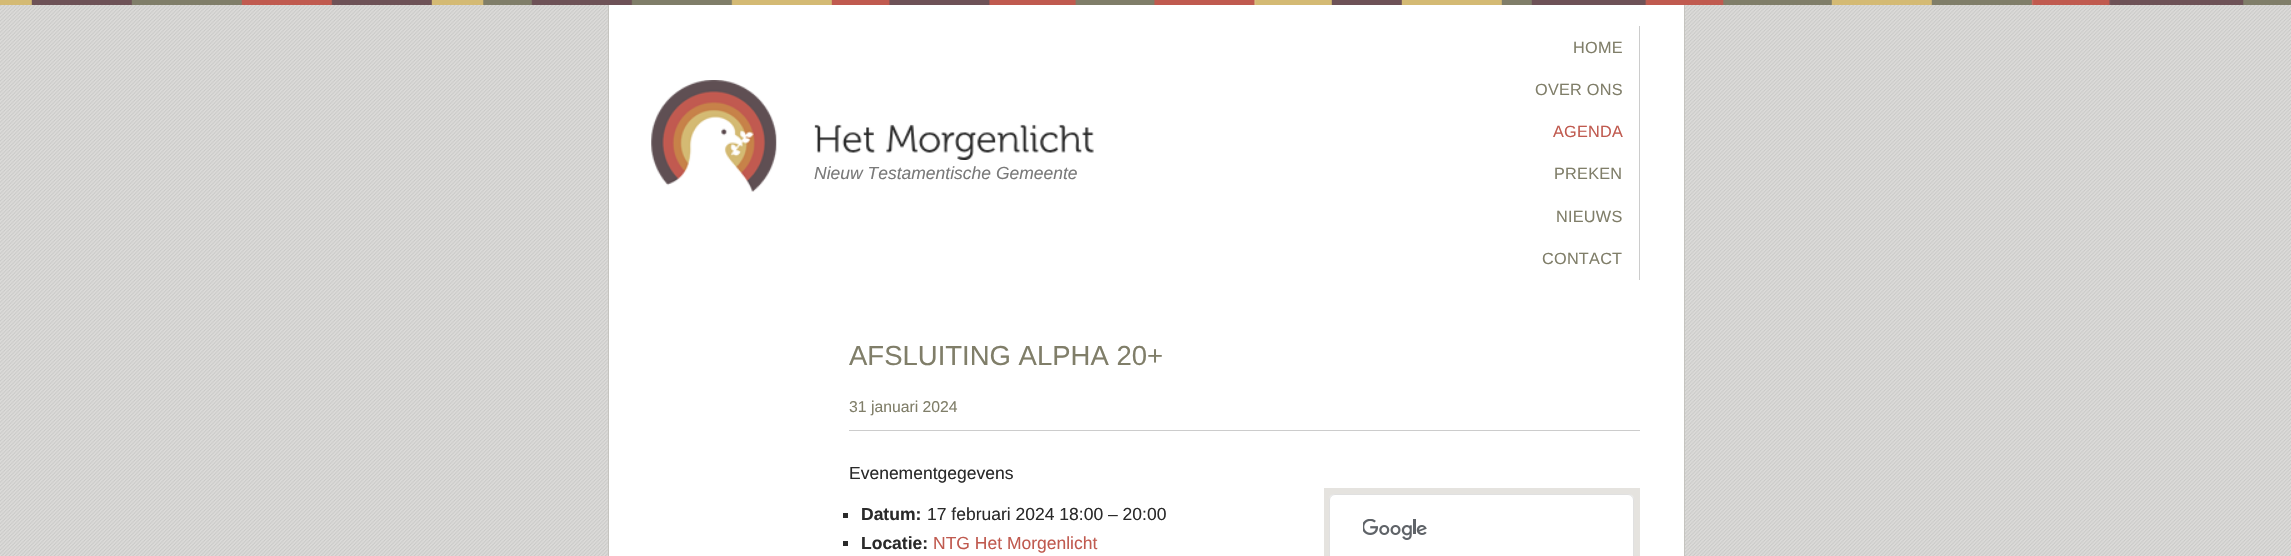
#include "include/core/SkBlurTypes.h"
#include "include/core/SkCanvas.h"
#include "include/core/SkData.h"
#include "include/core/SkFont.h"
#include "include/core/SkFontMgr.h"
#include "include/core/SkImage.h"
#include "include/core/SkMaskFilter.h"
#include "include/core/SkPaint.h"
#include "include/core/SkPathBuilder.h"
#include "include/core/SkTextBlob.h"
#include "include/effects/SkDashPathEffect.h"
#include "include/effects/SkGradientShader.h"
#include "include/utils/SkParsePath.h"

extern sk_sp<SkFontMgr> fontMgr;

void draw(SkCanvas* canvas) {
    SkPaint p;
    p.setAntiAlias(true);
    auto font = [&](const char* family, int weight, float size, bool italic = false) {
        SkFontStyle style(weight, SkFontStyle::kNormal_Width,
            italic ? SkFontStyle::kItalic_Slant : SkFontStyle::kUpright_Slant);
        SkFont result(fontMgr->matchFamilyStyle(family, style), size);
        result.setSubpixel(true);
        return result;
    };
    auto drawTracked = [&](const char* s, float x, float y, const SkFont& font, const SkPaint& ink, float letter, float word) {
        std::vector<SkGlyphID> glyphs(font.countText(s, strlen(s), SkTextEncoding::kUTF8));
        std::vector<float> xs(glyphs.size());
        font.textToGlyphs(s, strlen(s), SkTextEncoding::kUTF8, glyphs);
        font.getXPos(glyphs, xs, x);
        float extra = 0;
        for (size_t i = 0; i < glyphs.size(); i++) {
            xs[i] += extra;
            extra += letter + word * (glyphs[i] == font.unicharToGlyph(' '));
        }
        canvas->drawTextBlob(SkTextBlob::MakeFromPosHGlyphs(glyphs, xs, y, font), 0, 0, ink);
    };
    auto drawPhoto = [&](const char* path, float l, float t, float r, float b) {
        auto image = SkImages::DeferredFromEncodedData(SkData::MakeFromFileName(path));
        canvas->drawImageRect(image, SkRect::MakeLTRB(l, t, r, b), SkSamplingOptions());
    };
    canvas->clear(0xFFFFFFFF);
    drawPhoto("media/1.png", 0, 5, 2291, 556);
    drawPhoto("media/2.png", 0, 0, 2291, 5);
    {
        const struct { float l, t, r, b; SkColor color; } items[] = {
            {609, 5, 1684, 556, 0xFFFFFFFF},
            {1684, 5, 1685, 556, 0xFFC5C4BF},
            {608, 5, 609, 556, 0xFFC5C4BF},
        };
        for (auto [l, t, r, b, color] : items) {
            p.setColor(color);
            canvas->drawRect(SkRect::MakeLTRB(l, t, r, b), p);
        }
    }
    drawPhoto("media/3.png", 651, 80, 777, 192);
    drawPhoto("media/4.png", 814, 124, 876, 153);
    drawPhoto("media/5.png", 886, 124, 1094, 160);
    auto font1 = font("Liberation Sans", 400, 17.5f, true);
    p.setColor(0xFF7A7A7A);
    canvas->drawString("Nieuw Testamentische Gemeente", 814, 179, font1, p);
    p.setColor(0xFFCCCCCC);
    canvas->drawRect(SkRect::MakeLTRB(1639, 26, 1640, 280), p);
    auto font2 = font("Liberation Sans", 400, 16.25f);
    p.setColor(0xFF807E69);
    drawTracked("HOME", 1573, 53, font2, p, 0.25f, 0);
    drawTracked("OVER ONS", 1535, 95, font2, p, 0.25f, 0);
    p.setColor(0xFFC05A4F);
    drawTracked("AGENDA", 1553, 137, font2, p, 0.25f, 0);
    p.setColor(0xFF807E69);
    {
        const struct { const char* s; float x, y; } items[] = {
            {"PREKEN", 1554, 179},
            {"NIEUWS", 1556, 222},
            {"CONTACT", 1542, 264},
        };
        for (auto [s, x, y] : items) {
            drawTracked(s, x, y, font2, p, 0.25f, 0);
        }
    }
    auto font3 = font("Liberation Sans", 400, 27.5f);
    canvas->drawString("AFSLUITING ALPHA 20+", 849, 365, font3, p);
    auto font4 = font("Liberation Sans", 400, 15.75f);
    canvas->drawString("31 januari 2024", 849, 412, font4, p);
    p.setColor(0xFFCCCCCC);
    canvas->drawRect(SkRect::MakeLTRB(849, 430, 1640, 431), p);
    auto font5 = font("Liberation Sans", 400, 17.5f);
    p.setColor(0xFF2A2A2A);
    canvas->drawString("Evenementgegevens", 849, 479, font5, p);
    canvas->drawRect(SkRect::MakeLTRB(843, 513, 848, 518), p);
    auto font6 = font("Liberation Sans", 700, 17.5f);
    canvas->drawString("Datum:", 861, 520, font6, p);
    canvas->drawString("17 februari 2024 18:00 – 20:00", 927, 520, font5, p);
    canvas->drawRect(SkRect::MakeLTRB(843, 541, 848, 546), p);
    canvas->drawString("Locatie:", 861, 549, font6, p);
    p.setColor(0xFFC05A4F);
    canvas->drawString("NTG Het Morgenlicht", 933, 549, font5, p);
    p.setColor(0xFFE5E3DF);
    canvas->drawRect(SkRect::MakeLTRB(1324, 488, 1640, 556), p);
    p.setColor(0xFFFFFFFF);
    canvas->drawPath(SkPathBuilder().moveTo(1335, 494).lineTo(1628, 494).cubicTo(1631.5f, 494, 1634, 496.5f, 1634, 500).lineTo(1634, 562).lineTo(1329, 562).lineTo(1329, 500).cubicTo(1329, 496.5f, 1331.5f, 494, 1335, 494).close().detach(), p);
    p.setStyle(SkPaint::kStroke_Style);
    p.setStrokeWidth(1);
    p.setColor(0x1F000000);
    canvas->drawRoundRect(SkRect::MakeLTRB(1329.5f, 494.5f, 1633.5f, 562.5f), 5.5f, 5.5f, p);
    drawPhoto("media/6.png", 1363, 519, 1427, 540);
}
